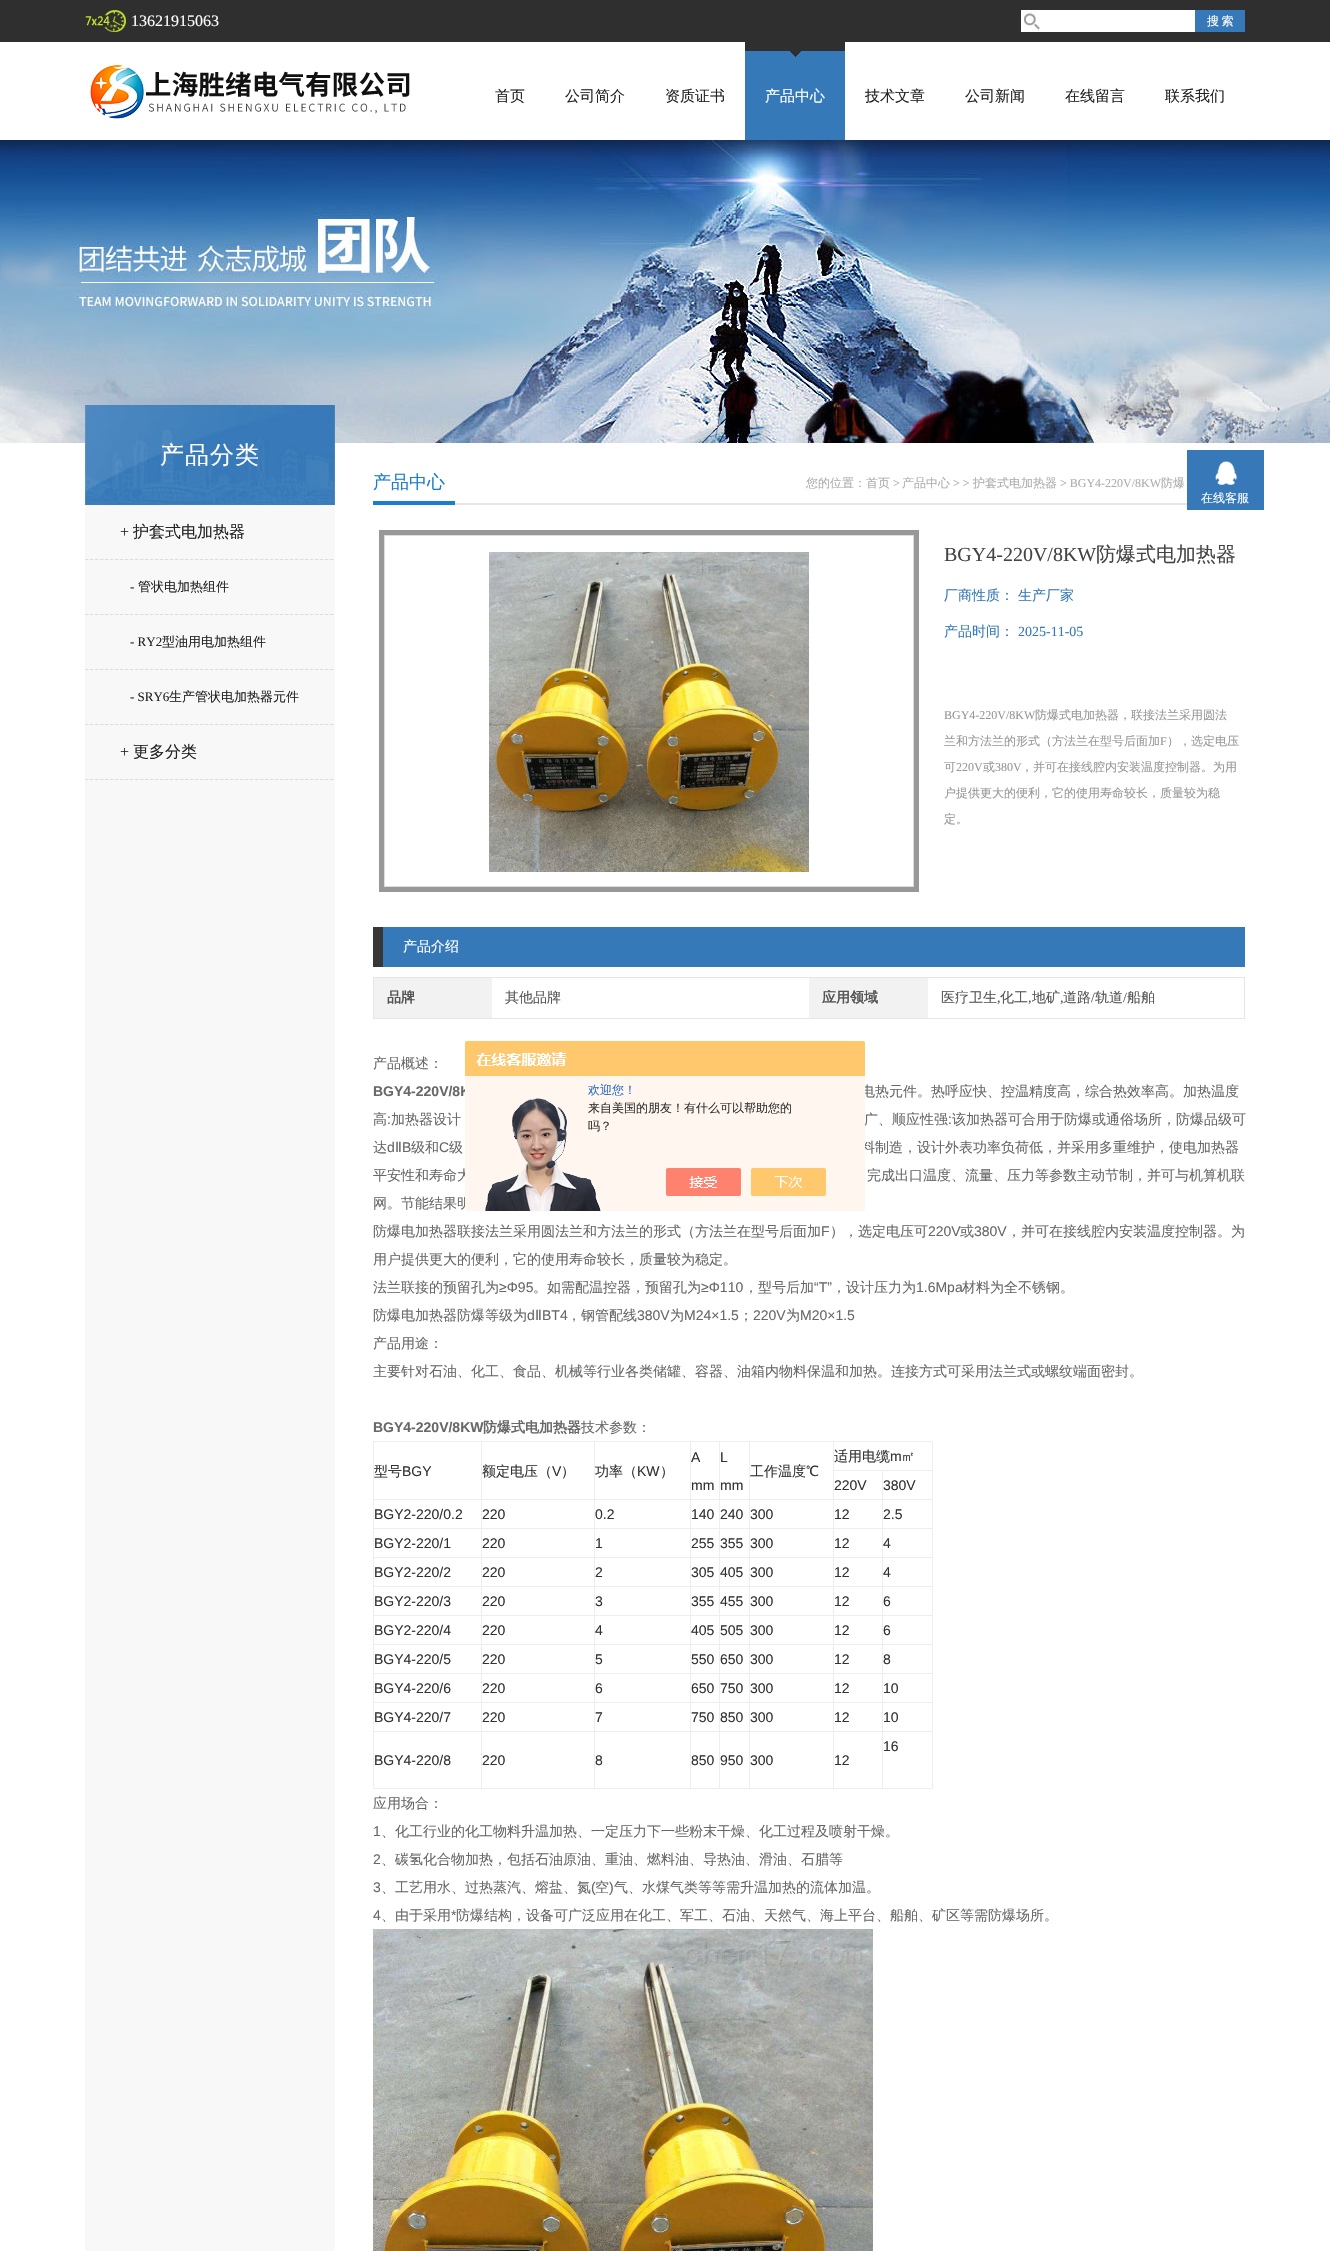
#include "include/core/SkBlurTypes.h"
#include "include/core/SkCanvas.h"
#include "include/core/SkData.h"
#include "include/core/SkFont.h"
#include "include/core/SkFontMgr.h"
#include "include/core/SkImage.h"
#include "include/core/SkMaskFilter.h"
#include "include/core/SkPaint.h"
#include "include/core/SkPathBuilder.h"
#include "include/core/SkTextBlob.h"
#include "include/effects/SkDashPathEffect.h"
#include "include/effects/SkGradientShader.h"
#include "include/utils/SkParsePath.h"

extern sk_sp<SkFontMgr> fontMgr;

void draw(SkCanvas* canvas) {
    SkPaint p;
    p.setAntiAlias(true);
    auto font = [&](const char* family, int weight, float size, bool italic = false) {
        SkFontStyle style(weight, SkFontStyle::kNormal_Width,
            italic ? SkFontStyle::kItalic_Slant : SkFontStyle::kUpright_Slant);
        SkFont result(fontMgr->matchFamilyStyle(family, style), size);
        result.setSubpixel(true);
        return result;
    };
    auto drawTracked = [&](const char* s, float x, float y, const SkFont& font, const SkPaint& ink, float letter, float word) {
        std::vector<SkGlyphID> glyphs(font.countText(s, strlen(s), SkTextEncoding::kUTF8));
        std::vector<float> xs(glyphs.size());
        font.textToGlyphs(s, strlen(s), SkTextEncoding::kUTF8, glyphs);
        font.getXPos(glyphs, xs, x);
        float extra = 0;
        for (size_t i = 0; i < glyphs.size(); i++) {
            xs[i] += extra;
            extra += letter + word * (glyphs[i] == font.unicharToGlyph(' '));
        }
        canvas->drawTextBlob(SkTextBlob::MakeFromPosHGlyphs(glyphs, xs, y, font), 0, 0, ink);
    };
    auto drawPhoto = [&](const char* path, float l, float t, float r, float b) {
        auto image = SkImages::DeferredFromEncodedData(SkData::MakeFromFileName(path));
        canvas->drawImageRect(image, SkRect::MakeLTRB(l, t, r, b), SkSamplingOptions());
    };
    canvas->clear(0xFFFFFFFF);
    p.setColor(0xFF2F2F2F);
    canvas->drawRect(SkRect::MakeLTRB(0, 0, 1330, 42), p);
    drawPhoto("media/1.png", 85, 10, 126, 32);
    auto font1 = font("Liberation Serif", 400, 16);
    p.setColor(0xFFFFFFFF);
    canvas->drawString("13621915063", 131, 26, font1, p);
    canvas->drawRect(SkRect::MakeLTRB(1021, 10, 1195, 32), p);
    drawPhoto("media/2.png", 1024, 11, 1040, 31);
    p.setColor(0xFF3779B8);
    canvas->drawRect(SkRect::MakeLTRB(1195, 10, 1245, 32), p);
    auto font2 = font("WenQuanYi Zen Hei", 500, 12);
    p.setColor(0xFFFFFFFF);
    drawTracked("搜 索", 1207, 25, font2, p, 0, -1);
    drawPhoto("media/6.png", 0, 140, 1330, 443);
    drawPhoto("media/3.png", 0, 140, 1330, 157);
    drawPhoto("media/4.png", 90, 65, 410, 119);
    auto font3 = font("WenQuanYi Zen Hei", 500, 15);
    p.setColor(0xFF222322);
    {
        const struct { const char* s; float x, y; } items[] = {
            {"首页", 495, 101},
            {"公司简介", 565, 101},
            {"资质证书", 665, 101},
        };
        for (auto [s, x, y] : items) {
            canvas->drawString(s, x, y, font3, p);
        }
    }
    p.setColor(0xFF3679B8);
    canvas->drawRect(SkRect::MakeLTRB(745, 51, 845, 140), p);
    drawPhoto("media/5.png", 745, 42, 845, 57);
    p.setColor(0xFFFFFFFF);
    canvas->drawString("产品中心", 765, 101, font3, p);
    p.setColor(0xFF222322);
    {
        const struct { const char* s; float x, y; } items[] = {
            {"技术文章", 865, 101},
            {"公司新闻", 965, 101},
            {"在线留言", 1065, 101},
            {"联系我们", 1165, 101},
        };
        for (auto [s, x, y] : items) {
            canvas->drawString(s, x, y, font3, p);
        }
    }
    p.setColor(0xFFF8F8F8);
    canvas->drawRect(SkRect::MakeLTRB(85, 505, 335, 2251), p);
    drawPhoto("media/7.png", 85, 405, 335, 505);
    auto font4 = font("WenQuanYi Zen Hei", 500, 24);
    p.setColor(0xFFFFFFFF);
    drawTracked("产品分类", 160, 463, font4, p, 1, 0);
    drawPhoto("media/8.png", 85, 559, 334, 560);
    p.setColor(0xFF222322);
    canvas->drawString("+", 120, 537, font1, p);
    auto font5 = font("WenQuanYi Zen Hei", 500, 16);
    canvas->drawString("护套式电加热器", 133, 537, font5, p);
    drawPhoto("media/8.png", 85, 614, 334, 615);
    auto font6 = font("Liberation Serif", 400, 13);
    canvas->drawString("-", 130, 591, font6, p);
    auto font7 = font("WenQuanYi Zen Hei", 500, 13);
    canvas->drawString("管状电加热组件", 138, 591, font7, p);
    drawPhoto("media/8.png", 85, 669, 334, 670);
    canvas->drawString("- RY2", 130, 646, font6, p);
    canvas->drawString("型油用电加热组件", 162, 646, font7, p);
    drawPhoto("media/8.png", 85, 724, 334, 725);
    canvas->drawString("- SRY6", 130, 701, font6, p);
    canvas->drawString("生产管状电加热器元件", 169, 701, font7, p);
    drawPhoto("media/8.png", 85, 779, 334, 780);
    canvas->drawString("+", 120, 757, font1, p);
    canvas->drawString("更多分类", 133, 757, font5, p);
    p.setColor(0xFFE5E6E5);
    canvas->drawRect(SkRect::MakeLTRB(455, 503, 1187, 505), p);
    p.setColor(0xFF1A7ECE);
    canvas->drawRect(SkRect::MakeLTRB(373, 501, 455, 505), p);
    auto font8 = font("WenQuanYi Zen Hei", 500, 18);
    canvas->drawString("产品中心", 373, 488, font8, p);
    p.setColor(0xFFADADAD);
    canvas->drawString("您的位置：首页", 806, 487, font2, p);
    auto font9 = font("Liberation Serif", 400, 12);
    canvas->drawString(">", 893, 487, font9, p);
    canvas->drawString("产品中心", 902, 487, font2, p);
    canvas->drawString("> >", 953, 487, font9, p);
    canvas->drawString("护套式电加热器", 973, 487, font2, p);
    canvas->drawString("> BGY4-220V/8KW", 1060, 487, font9, p);
    canvas->drawString("防爆", 1161, 487, font2, p);
    p.setStyle(SkPaint::kStroke_Style);
    p.setStrokeWidth(5);
    p.setColor(0xFF989898);
    canvas->drawRect(SkRect::MakeLTRB(381.5f, 532.5f, 916.5f, 889.5f), p);
    p.setStrokeWidth(1);
    p.setColor(0xFFDDDDDD);
    canvas->drawRect(SkRect::MakeLTRB(384.5f, 535.5f, 913.5f, 886.5f), p);
    drawPhoto("media/9.png", 489, 552, 809, 872);
    auto font10 = font("Liberation Serif", 400, 20);
    p.setStyle(SkPaint::kFill_Style);
    p.setColor(0xFF444444);
    canvas->drawString("BGY4-220V/8KW", 944, 561, font10, p);
    auto font11 = font("WenQuanYi Zen Hei", 500, 20);
    canvas->drawString("防爆式电加热器", 1096, 561, font11, p);
    auto font12 = font("WenQuanYi Zen Hei", 500, 14);
    p.setColor(0xFF3679B8);
    {
        const struct { const char* s; float x, y; } items[] = {
            {"厂商性质：", 944, 600},
            {"生产厂家", 1018, 600},
            {"产品时间：", 944, 636},
        };
        for (auto [s, x, y] : items) {
            canvas->drawString(s, x, y, font12, p);
        }
    }
    auto font13 = font("Liberation Serif", 400, 14);
    canvas->drawString("2025-11-05", 1018, 636, font13, p);
    p.setColor(0xFF979797);
    canvas->drawString("BGY4-220V/8KW", 944, 719, font9, p);
    canvas->drawString("防爆式电加热器，联接法兰采用圆法", 1035, 719, font2, p);
    canvas->drawString("兰和方法兰的形式（方法兰在型号后面加", 944, 745, font2, p);
    canvas->drawString("F", 1160, 745, font9, p);
    canvas->drawString("），选定电压", 1167, 745, font2, p);
    canvas->drawString("可", 944, 771, font2, p);
    canvas->drawString("220V", 956, 771, font9, p);
    canvas->drawString("或", 983, 771, font2, p);
    canvas->drawString("380V", 995, 771, font9, p);
    {
        const struct { const char* s; float x, y; } items[] = {
            {"，并可在接线腔内安装温度控制器。为用", 1021, 771},
            {"户提供更大的便利，它的使用寿命较长，质量较为稳", 944, 797},
            {"定。", 944, 823},
        };
        for (auto [s, x, y] : items) {
            canvas->drawString(s, x, y, font2, p);
        }
    }
    p.setColor(0xFF3679B8);
    canvas->drawRect(SkRect::MakeLTRB(383, 927, 1245, 967), p);
    p.setColor(0xFF373737);
    canvas->drawRect(SkRect::MakeLTRB(373, 927, 383, 967), p);
    p.setColor(0xFFFFFFFF);
    canvas->drawString("产品介绍", 403, 951, font12, p);
    {
        const struct { float l, t, r, b; SkColor color; } items[] = {
            {373, 977, 1245, 978, 0xFFE6E5E5},
            {1244, 977, 1245, 1019, 0xFFE6E5E5},
            {373, 977, 374, 1019, 0xFFE6E5E5},
            {374, 978, 492, 1018, 0xFFF2F2F2},
        };
        for (auto [l, t, r, b, color] : items) {
            p.setColor(color);
            canvas->drawRect(SkRect::MakeLTRB(l, t, r, b), p);
        }
    }
    auto font14 = font("WenQuanYi Zen Hei", 700, 14);
    p.setColor(0xFF555555);
    canvas->drawString("品牌", 387, 1002, font14, p);
    canvas->drawString("其他品牌", 505, 1002, font12, p);
    p.setColor(0xFFF2F2F2);
    canvas->drawRect(SkRect::MakeLTRB(809, 978, 928, 1018), p);
    p.setColor(0xFF555555);
    canvas->drawString("应用领域", 822, 1002, font14, p);
    p.setColor(0xFFE6E5E5);
    canvas->drawRect(SkRect::MakeLTRB(373, 1018, 1245, 1019), p);
    p.setColor(0xFF555555);
    canvas->drawString("医疗卫生", 941, 1002, font12, p);
    canvas->drawString(",", 997, 1002, font13, p);
    canvas->drawString("化工", 1000, 1002, font12, p);
    canvas->drawString(",", 1028, 1002, font13, p);
    canvas->drawString("地矿", 1032, 1002, font12, p);
    canvas->drawString(",", 1060, 1002, font13, p);
    canvas->drawString("道路", 1063, 1002, font12, p);
    canvas->drawString("/", 1091, 1002, font13, p);
    canvas->drawString("轨道", 1095, 1002, font12, p);
    canvas->drawString("/", 1123, 1002, font13, p);
    canvas->drawString("船舶", 1127, 1002, font12, p);
    p.setColor(0xFF686868);
    canvas->drawString("产品概述：", 373, 1068, font12, p);
    auto font15 = font("Liberation Sans", 700, 14);
    canvas->drawString("BGY4-220V/8K", 373, 1096, font15, p);
    canvas->drawString("电热元件。热呼应快、控温精度高，综合热效率高。加热温度", 861, 1096, font12, p);
    canvas->drawString("高", 373, 1124, font12, p);
    auto font16 = font("Liberation Sans", 400, 14);
    canvas->drawString(":", 387, 1124, font16, p);
    canvas->drawString("加热器设计", 391, 1124, font12, p);
    canvas->drawString("广、顺应性强", 864, 1124, font12, p);
    canvas->drawString(":", 948, 1124, font16, p);
    canvas->drawString("该加热器可合用于防爆或通俗场所，防爆品级可", 952, 1124, font12, p);
    canvas->drawString("达", 373, 1152, font12, p);
    canvas->drawString("d", 387, 1152, font16, p);
    auto font17 = font("DejaVu Sans", 400, 14);
    canvas->drawString("Ⅱ", 395, 1152, font17, p);
    canvas->drawString("B", 402, 1152, font16, p);
    canvas->drawString("级和", 411, 1152, font12, p);
    canvas->drawString("C", 439, 1152, font16, p);
    {
        const struct { const char* s; float x, y; } items[] = {
            {"级", 449, 1152},
            {"料制造，设计外表功率负荷低，并采用多重维护，使电加热器", 861, 1152},
            {"平安性和寿命大", 373, 1180},
            {"完成出口温度、流量、压力等参数主动节制，并可与机算机联", 867, 1180},
            {"网。节能结果明", 373, 1208},
            {"防爆电加热器联接法兰采用圆法兰和方法兰的形式（方法兰在型号后面加", 373, 1236},
        };
        for (auto [s, x, y] : items) {
            canvas->drawString(s, x, y, font12, p);
        }
    }
    canvas->drawString("F", 821, 1236, font16, p);
    canvas->drawString("），选定电压可", 830, 1236, font12, p);
    canvas->drawString("220V", 928, 1236, font16, p);
    canvas->drawString("或", 960, 1236, font12, p);
    canvas->drawString("380V", 974, 1236, font16, p);
    {
        const struct { const char* s; float x, y; } items[] = {
            {"，并可在接线腔内安装温度控制器。为", 1007, 1236},
            {"用户提供更大的便利，它的使用寿命较长，质量较为稳定。", 373, 1264},
            {"法兰联接的预留孔为", 373, 1292},
        };
        for (auto [s, x, y] : items) {
            canvas->drawString(s, x, y, font12, p);
        }
    }
    canvas->drawString("≥Φ95", 499, 1292, font16, p);
    canvas->drawString("。如需配温控器，预留孔为", 533, 1292, font12, p);
    canvas->drawString("≥Φ110", 701, 1292, font16, p);
    canvas->drawString("，型号后加", 744, 1292, font12, p);
    canvas->drawString("“T”", 814, 1292, font16, p);
    canvas->drawString("，设计压力为", 832, 1292, font12, p);
    canvas->drawString("1.6Mpa", 916, 1292, font16, p);
    canvas->drawString("材料为全不锈钢。", 962, 1292, font12, p);
    canvas->drawString("防爆电加热器防爆等级为", 373, 1320, font12, p);
    canvas->drawString("d", 527, 1320, font16, p);
    canvas->drawString("Ⅱ", 535, 1320, font17, p);
    canvas->drawString("BT4", 542, 1320, font16, p);
    canvas->drawString("，钢管配线", 567, 1320, font12, p);
    canvas->drawString("380V", 637, 1320, font16, p);
    canvas->drawString("为", 670, 1320, font12, p);
    canvas->drawString("M24×1.5", 684, 1320, font16, p);
    canvas->drawString("；", 739, 1320, font12, p);
    canvas->drawString("220V", 753, 1320, font16, p);
    canvas->drawString("为", 786, 1320, font12, p);
    canvas->drawString("M20×1.5", 800, 1320, font16, p);
    canvas->drawString("产品用途：", 373, 1348, font12, p);
    canvas->drawString("主要针对石油、化工、食品、机械等行业各类储罐、容器、油箱内物料保温和加热。连接方式可采用法兰式或螺纹端面密封。", 373, 1376, font12, p);
    canvas->drawString("BGY4-220V/8KW", 373, 1432, font15, p);
    canvas->drawString("防爆式电加热器", 483, 1432, font14, p);
    canvas->drawString("技术参数：", 581, 1432, font12, p);
    {
        const struct { float l, t, r, b; SkColor color; } items[] = {
            {833, 1441, 933, 1442, 0xFFEEEEEE},
            {882, 1470, 933, 1471, 0xFFEEEEEE},
            {882, 1499, 933, 1500, 0xFFEEEEEE},
            {882, 1528, 933, 1529, 0xFFEEEEEE},
            {882, 1557, 933, 1558, 0xFFEEEEEE},
            {882, 1586, 933, 1587, 0xFFEEEEEE},
            {882, 1615, 933, 1616, 0xFFEEEEEE},
            {882, 1644, 933, 1645, 0xFFEEEEEE},
            {882, 1673, 933, 1674, 0xFFEEEEEE},
            {882, 1702, 933, 1703, 0xFFEEEEEE},
            {882, 1731, 933, 1732, 0xFFEEEEEE},
            {932, 1731, 933, 1789, 0xFFEEEEEE},
            {882, 1788, 933, 1789, 0xFFEEEEEE},
            {882, 1731, 883, 1789, 0xFFEEEEEE},
            {833, 1731, 883, 1732, 0xFFEEEEEE},
            {882, 1702, 883, 1732, 0xFFEEEEEE},
            {833, 1702, 883, 1703, 0xFFEEEEEE},
            {882, 1673, 883, 1703, 0xFFEEEEEE},
            {833, 1673, 883, 1674, 0xFFEEEEEE},
            {882, 1644, 883, 1674, 0xFFEEEEEE},
            {833, 1644, 883, 1645, 0xFFEEEEEE},
            {882, 1615, 883, 1645, 0xFFEEEEEE},
            {833, 1615, 883, 1616, 0xFFEEEEEE},
            {882, 1586, 883, 1616, 0xFFEEEEEE},
            {833, 1586, 883, 1587, 0xFFEEEEEE},
            {882, 1557, 883, 1587, 0xFFEEEEEE},
            {833, 1557, 883, 1558, 0xFFEEEEEE},
            {882, 1528, 883, 1558, 0xFFEEEEEE},
            {833, 1528, 883, 1529, 0xFFEEEEEE},
            {882, 1499, 883, 1529, 0xFFEEEEEE},
            {833, 1499, 883, 1500, 0xFFEEEEEE},
            {882, 1470, 883, 1500, 0xFFEEEEEE},
            {833, 1470, 883, 1471, 0xFFEEEEEE},
            {833, 1788, 883, 1789, 0xFFEEEEEE},
            {833, 1731, 834, 1789, 0xFFEEEEEE},
            {749, 1731, 834, 1732, 0xFFEEEEEE},
            {833, 1702, 834, 1732, 0xFFEEEEEE},
            {749, 1702, 834, 1703, 0xFFEEEEEE},
            {833, 1673, 834, 1703, 0xFFEEEEEE},
            {749, 1673, 834, 1674, 0xFFEEEEEE},
            {833, 1644, 834, 1674, 0xFFEEEEEE},
            {749, 1644, 834, 1645, 0xFFEEEEEE},
            {833, 1615, 834, 1645, 0xFFEEEEEE},
            {749, 1615, 834, 1616, 0xFFEEEEEE},
            {833, 1586, 834, 1616, 0xFFEEEEEE},
            {749, 1586, 834, 1587, 0xFFEEEEEE},
            {833, 1557, 834, 1587, 0xFFEEEEEE},
            {749, 1557, 834, 1558, 0xFFEEEEEE},
            {833, 1528, 834, 1558, 0xFFEEEEEE},
            {749, 1528, 834, 1529, 0xFFEEEEEE},
            {833, 1499, 834, 1529, 0xFFEEEEEE},
            {749, 1499, 834, 1500, 0xFFEEEEEE},
            {833, 1470, 834, 1500, 0xFFEEEEEE},
            {833, 1441, 834, 1471, 0xFFEEEEEE},
            {749, 1441, 834, 1442, 0xFFEEEEEE},
            {749, 1788, 834, 1789, 0xFFEEEEEE},
            {749, 1731, 750, 1789, 0xFFEEEEEE},
            {719, 1731, 750, 1732, 0xFFEEEEEE},
            {749, 1702, 750, 1732, 0xFFEEEEEE},
            {719, 1702, 750, 1703, 0xFFEEEEEE},
            {749, 1673, 750, 1703, 0xFFEEEEEE},
            {719, 1673, 750, 1674, 0xFFEEEEEE},
            {749, 1644, 750, 1674, 0xFFEEEEEE},
            {719, 1644, 750, 1645, 0xFFEEEEEE},
            {749, 1615, 750, 1645, 0xFFEEEEEE},
            {719, 1615, 750, 1616, 0xFFEEEEEE},
            {749, 1586, 750, 1616, 0xFFEEEEEE},
            {719, 1586, 750, 1587, 0xFFEEEEEE},
            {749, 1557, 750, 1587, 0xFFEEEEEE},
            {719, 1557, 750, 1558, 0xFFEEEEEE},
            {749, 1528, 750, 1558, 0xFFEEEEEE},
            {719, 1528, 750, 1529, 0xFFEEEEEE},
            {749, 1499, 750, 1529, 0xFFEEEEEE},
            {719, 1499, 750, 1500, 0xFFEEEEEE},
            {749, 1441, 750, 1500, 0xFFEEEEEE},
            {719, 1441, 750, 1442, 0xFFEEEEEE},
            {719, 1788, 750, 1789, 0xFFEEEEEE},
            {719, 1731, 720, 1789, 0xFFEEEEEE},
            {690, 1731, 720, 1732, 0xFFEEEEEE},
            {719, 1702, 720, 1732, 0xFFEEEEEE},
            {690, 1702, 720, 1703, 0xFFEEEEEE},
            {719, 1673, 720, 1703, 0xFFEEEEEE},
            {690, 1673, 720, 1674, 0xFFEEEEEE},
            {719, 1644, 720, 1674, 0xFFEEEEEE},
            {690, 1644, 720, 1645, 0xFFEEEEEE},
            {719, 1615, 720, 1645, 0xFFEEEEEE},
            {690, 1615, 720, 1616, 0xFFEEEEEE},
            {719, 1586, 720, 1616, 0xFFEEEEEE},
            {690, 1586, 720, 1587, 0xFFEEEEEE},
            {719, 1557, 720, 1587, 0xFFEEEEEE},
            {690, 1557, 720, 1558, 0xFFEEEEEE},
            {719, 1528, 720, 1558, 0xFFEEEEEE},
            {690, 1528, 720, 1529, 0xFFEEEEEE},
            {719, 1499, 720, 1529, 0xFFEEEEEE},
            {690, 1499, 720, 1500, 0xFFEEEEEE},
            {719, 1441, 720, 1500, 0xFFEEEEEE},
            {690, 1441, 720, 1442, 0xFFEEEEEE},
            {690, 1788, 720, 1789, 0xFFEEEEEE},
            {690, 1731, 691, 1789, 0xFFEEEEEE},
            {594, 1731, 691, 1732, 0xFFEEEEEE},
            {690, 1702, 691, 1732, 0xFFEEEEEE},
            {594, 1702, 691, 1703, 0xFFEEEEEE},
            {690, 1673, 691, 1703, 0xFFEEEEEE},
            {594, 1673, 691, 1674, 0xFFEEEEEE},
            {690, 1644, 691, 1674, 0xFFEEEEEE},
            {594, 1644, 691, 1645, 0xFFEEEEEE},
            {690, 1615, 691, 1645, 0xFFEEEEEE},
            {594, 1615, 691, 1616, 0xFFEEEEEE},
            {690, 1586, 691, 1616, 0xFFEEEEEE},
            {594, 1586, 691, 1587, 0xFFEEEEEE},
            {690, 1557, 691, 1587, 0xFFEEEEEE},
            {594, 1557, 691, 1558, 0xFFEEEEEE},
            {690, 1528, 691, 1558, 0xFFEEEEEE},
            {594, 1528, 691, 1529, 0xFFEEEEEE},
            {690, 1499, 691, 1529, 0xFFEEEEEE},
            {594, 1499, 691, 1500, 0xFFEEEEEE},
            {690, 1441, 691, 1500, 0xFFEEEEEE},
            {594, 1441, 691, 1442, 0xFFEEEEEE},
            {594, 1788, 691, 1789, 0xFFEEEEEE},
            {594, 1731, 595, 1789, 0xFFEEEEEE},
            {481, 1731, 595, 1732, 0xFFEEEEEE},
            {594, 1702, 595, 1732, 0xFFEEEEEE},
            {481, 1702, 595, 1703, 0xFFEEEEEE},
            {594, 1673, 595, 1703, 0xFFEEEEEE},
            {481, 1673, 595, 1674, 0xFFEEEEEE},
            {594, 1644, 595, 1674, 0xFFEEEEEE},
            {481, 1644, 595, 1645, 0xFFEEEEEE},
            {594, 1615, 595, 1645, 0xFFEEEEEE},
            {481, 1615, 595, 1616, 0xFFEEEEEE},
            {594, 1586, 595, 1616, 0xFFEEEEEE},
            {481, 1586, 595, 1587, 0xFFEEEEEE},
            {594, 1557, 595, 1587, 0xFFEEEEEE},
            {481, 1557, 595, 1558, 0xFFEEEEEE},
            {594, 1528, 595, 1558, 0xFFEEEEEE},
            {481, 1528, 595, 1529, 0xFFEEEEEE},
            {594, 1499, 595, 1529, 0xFFEEEEEE},
            {481, 1499, 595, 1500, 0xFFEEEEEE},
            {594, 1441, 595, 1500, 0xFFEEEEEE},
            {481, 1441, 595, 1442, 0xFFEEEEEE},
            {481, 1788, 595, 1789, 0xFFEEEEEE},
            {481, 1731, 482, 1789, 0xFFEEEEEE},
            {373, 1731, 482, 1732, 0xFFEEEEEE},
            {481, 1702, 482, 1732, 0xFFEEEEEE},
            {373, 1702, 482, 1703, 0xFFEEEEEE},
            {481, 1673, 482, 1703, 0xFFEEEEEE},
            {373, 1673, 482, 1674, 0xFFEEEEEE},
            {481, 1644, 482, 1674, 0xFFEEEEEE},
            {373, 1644, 482, 1645, 0xFFEEEEEE},
            {481, 1615, 482, 1645, 0xFFEEEEEE},
            {373, 1615, 482, 1616, 0xFFEEEEEE},
            {481, 1586, 482, 1616, 0xFFEEEEEE},
            {373, 1586, 482, 1587, 0xFFEEEEEE},
            {481, 1557, 482, 1587, 0xFFEEEEEE},
            {373, 1557, 482, 1558, 0xFFEEEEEE},
            {481, 1528, 482, 1558, 0xFFEEEEEE},
            {373, 1528, 482, 1529, 0xFFEEEEEE},
            {481, 1499, 482, 1529, 0xFFEEEEEE},
            {373, 1499, 482, 1500, 0xFFEEEEEE},
            {481, 1441, 482, 1500, 0xFFEEEEEE},
            {373, 1441, 482, 1442, 0xFFEEEEEE},
            {373, 1788, 482, 1789, 0xFFEEEEEE},
            {373, 1731, 374, 1789, 0xFFEEEEEE},
            {373, 1702, 374, 1732, 0xFFEEEEEE},
            {373, 1673, 374, 1703, 0xFFEEEEEE},
            {373, 1644, 374, 1674, 0xFFEEEEEE},
            {373, 1615, 374, 1645, 0xFFEEEEEE},
            {373, 1586, 374, 1616, 0xFFEEEEEE},
            {373, 1557, 374, 1587, 0xFFEEEEEE},
            {373, 1528, 374, 1558, 0xFFEEEEEE},
            {373, 1499, 374, 1529, 0xFFEEEEEE},
            {373, 1441, 374, 1500, 0xFFEEEEEE},
        };
        for (auto [l, t, r, b, color] : items) {
            p.setColor(color);
            canvas->drawRect(SkRect::MakeLTRB(l, t, r, b), p);
        }
    }
    p.setColor(0xFF333333);
    canvas->drawString("型号", 374, 1476, font12, p);
    canvas->drawString("BGY", 402, 1476, font16, p);
    canvas->drawString("额定电压（", 482, 1476, font12, p);
    canvas->drawString("V", 552, 1476, font16, p);
    canvas->drawString("）", 561, 1476, font12, p);
    canvas->drawString("功率（", 595, 1476, font12, p);
    canvas->drawString("KW", 637, 1476, font16, p);
    canvas->drawString("）", 660, 1476, font12, p);
    {
        const struct { const char* s; float x, y; } items[] = {
            {"A", 691, 1462},
            {"mm", 691, 1490},
            {"L", 720, 1462},
            {"mm", 720, 1490},
        };
        for (auto [s, x, y] : items) {
            canvas->drawString(s, x, y, font16, p);
        }
    }
    canvas->drawString("工作温度℃", 750, 1476, font12, p);
    {
        const struct { float l, t, r, b; SkColor color; } items[] = {
            {932, 1702, 933, 1732, 0xFFEEEEEE},
            {932, 1673, 933, 1703, 0xFFEEEEEE},
            {932, 1644, 933, 1674, 0xFFEEEEEE},
            {932, 1615, 933, 1645, 0xFFEEEEEE},
            {932, 1586, 933, 1616, 0xFFEEEEEE},
            {932, 1557, 933, 1587, 0xFFEEEEEE},
            {932, 1528, 933, 1558, 0xFFEEEEEE},
            {932, 1499, 933, 1529, 0xFFEEEEEE},
            {932, 1470, 933, 1500, 0xFFEEEEEE},
            {932, 1441, 933, 1471, 0xFFEEEEEE},
        };
        for (auto [l, t, r, b, color] : items) {
            p.setColor(color);
            canvas->drawRect(SkRect::MakeLTRB(l, t, r, b), p);
        }
    }
    p.setColor(0xFF333333);
    canvas->drawString("适用电缆", 834, 1461, font12, p);
    canvas->drawString("m", 890, 1461, font16, p);
    canvas->drawString("㎡", 901, 1461, font12, p);
    {
        const struct { const char* s; float x, y; } items[] = {
            {"220V", 834, 1490},
            {"380V", 883, 1490},
            {"BGY2-220/0.2", 374, 1519},
            {"220", 482, 1519},
            {"0.2", 595, 1519},
            {"140", 691, 1519},
            {"240", 720, 1519},
            {"300", 750, 1519},
            {"12", 834, 1519},
            {"2.5", 883, 1519},
            {"BGY2-220/1", 374, 1548},
            {"220", 482, 1548},
            {"1", 595, 1548},
            {"255", 691, 1548},
            {"355", 720, 1548},
            {"300", 750, 1548},
            {"12", 834, 1548},
            {"4", 883, 1548},
            {"BGY2-220/2", 374, 1577},
            {"220", 482, 1577},
            {"2", 595, 1577},
            {"305", 691, 1577},
            {"405", 720, 1577},
            {"300", 750, 1577},
            {"12", 834, 1577},
            {"4", 883, 1577},
            {"BGY2-220/3", 374, 1606},
            {"220", 482, 1606},
            {"3", 595, 1606},
            {"355", 691, 1606},
            {"455", 720, 1606},
            {"300", 750, 1606},
            {"12", 834, 1606},
            {"6", 883, 1606},
            {"BGY2-220/4", 374, 1635},
            {"220", 482, 1635},
            {"4", 595, 1635},
            {"405", 691, 1635},
            {"505", 720, 1635},
            {"300", 750, 1635},
            {"12", 834, 1635},
            {"6", 883, 1635},
            {"BGY4-220/5", 374, 1664},
            {"220", 482, 1664},
            {"5", 595, 1664},
            {"550", 691, 1664},
            {"650", 720, 1664},
            {"300", 750, 1664},
            {"12", 834, 1664},
            {"8", 883, 1664},
            {"BGY4-220/6", 374, 1693},
            {"220", 482, 1693},
            {"6", 595, 1693},
            {"650", 691, 1693},
            {"750", 720, 1693},
            {"300", 750, 1693},
            {"12", 834, 1693},
            {"10", 883, 1693},
            {"BGY4-220/7", 374, 1722},
            {"220", 482, 1722},
            {"7", 595, 1722},
            {"750", 691, 1722},
            {"850", 720, 1722},
            {"300", 750, 1722},
            {"12", 834, 1722},
            {"10", 883, 1722},
            {"16", 883, 1751},
            {"BGY4-220/8", 374, 1765},
            {"220", 482, 1765},
            {"8", 595, 1765},
            {"850", 691, 1765},
            {"950", 720, 1765},
            {"300", 750, 1765},
            {"12", 834, 1765},
        };
        for (auto [s, x, y] : items) {
            canvas->drawString(s, x, y, font16, p);
        }
    }
    p.setColor(0xFF686868);
    canvas->drawString("应用场合：", 373, 1808, font12, p);
    canvas->drawString("1", 373, 1836, font16, p);
    canvas->drawString("、化工行业的化工物料升温加热、一定压力下一些粉末干燥、化工过程及喷射干燥。", 381, 1836, font12, p);
    canvas->drawString("2", 373, 1864, font16, p);
    canvas->drawString("、碳氢化合物加热，包括石油原油、重油、燃料油、导热油、滑油、石腊等", 381, 1864, font12, p);
    canvas->drawString("3", 373, 1892, font16, p);
    canvas->drawString("、工艺用水、过热蒸汽、熔盐、氮", 381, 1892, font12, p);
    canvas->drawString("(", 591, 1892, font16, p);
    canvas->drawString("空", 595, 1892, font12, p);
    canvas->drawString(")", 609, 1892, font16, p);
    canvas->drawString("气、水煤气类等等需升温加热的流体加温。", 614, 1892, font12, p);
    canvas->drawString("4", 373, 1920, font16, p);
    canvas->drawString("、由于采用", 381, 1920, font12, p);
    canvas->drawString("*", 451, 1920, font16, p);
    canvas->drawString("防爆结构，设备可广泛应用在化工、军工、石油、天然气、海上平台、船舶、矿区等需防爆场所。", 456, 1920, font12, p);
    drawPhoto("media/10.png", 373, 1929, 873, 2251);
    p.setColor(0xFF3779B8);
    canvas->drawRect(SkRect::MakeLTRB(1187, 450, 1264, 510), p);
    drawPhoto("media/11.png", 1215, 461, 1237, 485);
    p.setColor(0xFFFFFFFF);
    canvas->drawString("在线客服", 1201, 502, font2, p);
    drawPhoto("media/12.png", 465, 1041, 865, 1211);
    p.setColor(0xFF2E6EC6);
    canvas->drawString("欢迎您！", 588, 1094, font2, p);
    p.setColor(0xFF333333);
    canvas->drawString("来自美国的朋友！有什么可以帮助您的", 588, 1112, font2, p);
    canvas->drawString("吗？", 588, 1130, font2, p);
}
